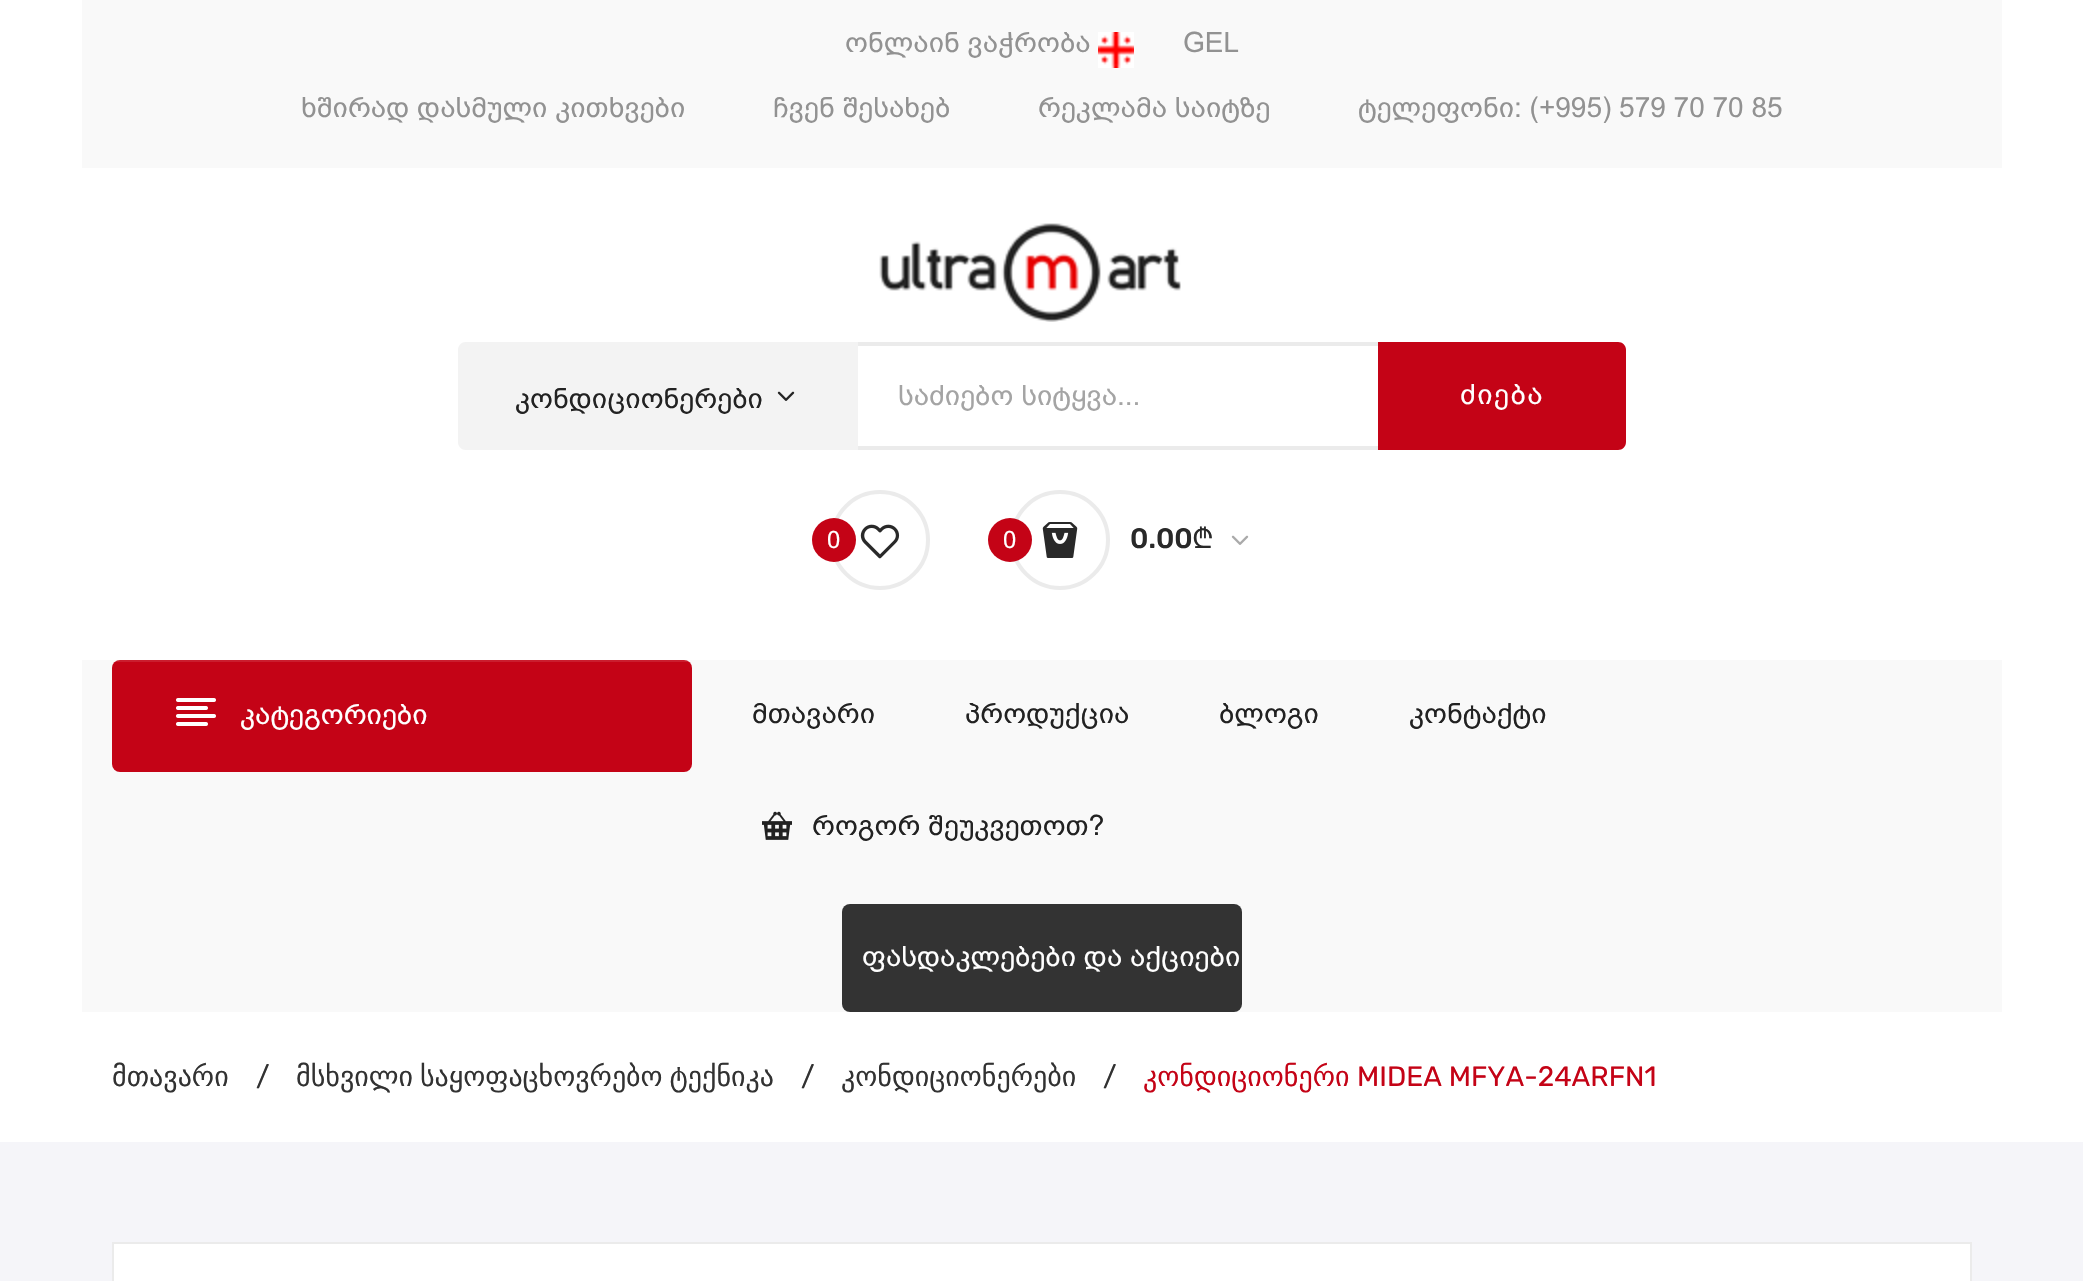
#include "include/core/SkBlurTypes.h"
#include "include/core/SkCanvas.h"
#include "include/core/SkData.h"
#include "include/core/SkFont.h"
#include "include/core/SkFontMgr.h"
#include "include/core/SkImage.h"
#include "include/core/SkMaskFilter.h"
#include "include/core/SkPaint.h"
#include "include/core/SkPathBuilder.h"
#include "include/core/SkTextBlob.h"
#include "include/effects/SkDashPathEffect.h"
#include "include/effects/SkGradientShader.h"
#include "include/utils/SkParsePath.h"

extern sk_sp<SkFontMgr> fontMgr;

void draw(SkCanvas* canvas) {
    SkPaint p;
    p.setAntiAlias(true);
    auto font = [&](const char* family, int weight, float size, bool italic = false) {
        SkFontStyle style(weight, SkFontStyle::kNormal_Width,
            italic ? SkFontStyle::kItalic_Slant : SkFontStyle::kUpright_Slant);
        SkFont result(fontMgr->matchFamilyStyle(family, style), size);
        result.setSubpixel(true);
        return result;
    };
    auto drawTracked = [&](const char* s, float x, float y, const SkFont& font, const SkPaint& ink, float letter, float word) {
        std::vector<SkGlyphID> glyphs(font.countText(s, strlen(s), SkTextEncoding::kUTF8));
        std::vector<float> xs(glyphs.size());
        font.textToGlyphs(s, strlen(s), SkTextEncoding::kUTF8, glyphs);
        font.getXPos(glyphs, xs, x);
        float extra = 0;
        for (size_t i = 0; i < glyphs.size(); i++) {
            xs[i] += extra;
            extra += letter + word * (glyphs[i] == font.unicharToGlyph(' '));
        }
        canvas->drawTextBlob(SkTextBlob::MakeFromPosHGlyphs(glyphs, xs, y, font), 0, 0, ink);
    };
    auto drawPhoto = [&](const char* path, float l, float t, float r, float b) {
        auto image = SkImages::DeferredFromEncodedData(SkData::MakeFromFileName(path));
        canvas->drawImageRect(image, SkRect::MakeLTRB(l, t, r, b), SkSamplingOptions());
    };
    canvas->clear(0xFFF5F5F9);
    p.setColor(0xFFFFFFFF);
    canvas->drawRect(SkRect::MakeLTRB(0, 0, 2083, 1142), p);
    p.setColor(0xFFF9F9F9);
    canvas->drawRect(SkRect::MakeLTRB(82, 0, 2002, 168), p);
    auto font1 = font("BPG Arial", 400, 28);
    p.setColor(0xFF929292);
    canvas->drawString("ონლაინ ვაჭრობა", 845, 52, font1, p);
    drawPhoto("media/1.png", 1098, 32, 1134, 68);
    {
        const struct { const char* s; float x, y; } items[] = {
            {"GEL", 1183, 52},
            {"ხშირად დასმული კითხვები", 301, 117},
            {"ჩვენ შესახებ", 773, 117},
            {"რეკლამა საიტზე", 1038, 117},
            {"ტელეფონი: (+995) 579 70 70 85", 1358, 117},
        };
        for (auto [s, x, y] : items) {
            canvas->drawString(s, x, y, font1, p);
        }
    }
    drawPhoto("media/2.png", 879, 223, 1181, 322);
    p.setColor(0xFFF3F3F3);
    canvas->drawPath(SkPathBuilder().moveTo(466, 342).lineTo(858, 342).lineTo(858, 450).lineTo(466, 450).cubicTo(461.5f, 450, 458, 446.5f, 458, 442).lineTo(458, 350).cubicTo(458, 345.5f, 461.5f, 342, 466, 342).close().detach(), p);
    p.setColor(0xFF222222);
    canvas->drawString("კონდიციონერები", 515, 408, font1, p);
    drawPhoto("media/3.png", 777, 391, 795, 401);
    p.setColor(0xFFEBEBEB);
    canvas->drawRect(SkRect::MakeLTRB(858, 342, 1378, 346), p);
    canvas->drawRect(SkRect::MakeLTRB(858, 446, 1378, 450), p);
    p.setColor(0xFFA4A4A4);
    canvas->drawString("საძიებო სიტყვა...", 898, 405, font1, p);
    p.setColor(0xFFC40316);
    canvas->drawPath(SkPathBuilder().moveTo(1378, 342).lineTo(1618, 342).cubicTo(1622.5f, 342, 1626, 345.5f, 1626, 350).lineTo(1626, 442).cubicTo(1626, 446.5f, 1622.5f, 450, 1618, 450).lineTo(1378, 450).close().detach(), p);
    p.setColor(0xFFFFFFFF);
    drawTracked("ძიება", 1460, 404, font1, p, 1.5f, 0);
    p.setStyle(SkPaint::kStroke_Style);
    p.setStrokeWidth(4);
    p.setColor(0xFFEBEBEB);
    canvas->drawCircle(880, 540, 48, p);
    p.setStyle(SkPaint::kFill_Style);
    p.setColor(0xFFC40316);
    canvas->drawCircle(834, 540, 22, p);
    auto font2 = font("BPG Arial", 400, 24);
    p.setColor(0xFFFFFFFF);
    canvas->drawString("0", 827, 548, font2, p);
    drawPhoto("media/4.png", 860, 524, 900, 559);
    p.setStyle(SkPaint::kStroke_Style);
    p.setColor(0xFFEBEBEB);
    canvas->drawCircle(1060, 540, 48, p);
    drawPhoto("media/5.png", 1042, 522, 1078, 558);
    auto font3 = font("Rubik", 500, 28);
    p.setStyle(SkPaint::kFill_Style);
    p.setColor(0xFF292929);
    canvas->drawString("0.00", 1130, 548, font3, p);
    auto font4 = font("Noto Sans", 400, 28);
    canvas->drawString("₾", 1192, 548, font4, p);
    p.setColor(0xFFC40316);
    canvas->drawCircle(1010, 540, 22, p);
    p.setColor(0xFFFFFFFF);
    canvas->drawString("0", 1003, 548, font2, p);
    drawPhoto("media/6.png", 1231, 535, 1249, 545);
    p.setColor(0xFFF9F9F9);
    canvas->drawRect(SkRect::MakeLTRB(82, 660, 2002, 1012), p);
    p.setColor(0xFFC40316);
    canvas->drawRoundRect(SkRect::MakeLTRB(112, 660, 692, 772), 8, 8, p);
    p.setColor(0x1AFFFFFF);
    canvas->drawRect(SkRect::MakeLTRB(115, 660, 689, 662), p);
    drawPhoto("media/7.png", 176, 698, 216, 726);
    p.setColor(0xFFFFFFFF);
    canvas->drawString("კატეგორიები", 240, 724, font1, p);
    p.setColor(0xFF222222);
    {
        const struct { const char* s; float x, y; } items[] = {
            {"მთავარი", 752, 723},
            {"პროდუქცია", 965, 723},
            {"ბლოგი", 1219, 723},
            {"კონტაქტი", 1409, 723},
        };
        for (auto [s, x, y] : items) {
            canvas->drawString(s, x, y, font1, p);
        }
    }
    drawPhoto("media/8.png", 762, 811, 792, 840);
    canvas->drawString("როგორ შეუკვეთოთ?", 812, 835, font1, p);
    p.setColor(0xFF333333);
    canvas->drawRoundRect(SkRect::MakeLTRB(842, 904, 1242, 1012), 8, 8, p);
    p.setColor(0xFFFFFFFF);
    canvas->drawString("ფასდაკლებები და აქციები", 862, 966, font1, p);
    auto font5 = font("DejaVu Sans", 400, 28);
    p.setColor(0xFF323232);
    canvas->drawString("მთავარი", 112, 1086, font5, p);
    auto font6 = font("Rubik", 400, 28);
    canvas->drawString("/", 256, 1086, font6, p);
    drawTracked("მსხვილი საყოფაცხოვრებო ტექნიკა", 296, 1086, font5, p, 0, -2);
    canvas->drawString("/", 801, 1086, font6, p);
    canvas->drawString("კონდიციონერები", 841, 1086, font5, p);
    canvas->drawString("/", 1103, 1086, font6, p);
    p.setColor(0xFFC40316);
    canvas->drawString("კონდიციონერი", 1143, 1086, font5, p);
    canvas->drawString("MIDEA MFYA-24ARFN1", 1357, 1086, font6, p);
    p.setColor(0xFFFFFFFF);
    canvas->drawRect(SkRect::MakeLTRB(113, 1243, 1971, 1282), p);
    p.setStyle(SkPaint::kStroke_Style);
    p.setStrokeWidth(2);
    p.setColor(0xFFEBEBEB);
    canvas->drawRect(SkRect::MakeLTRB(113, 1243, 1971, 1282), p);
}
